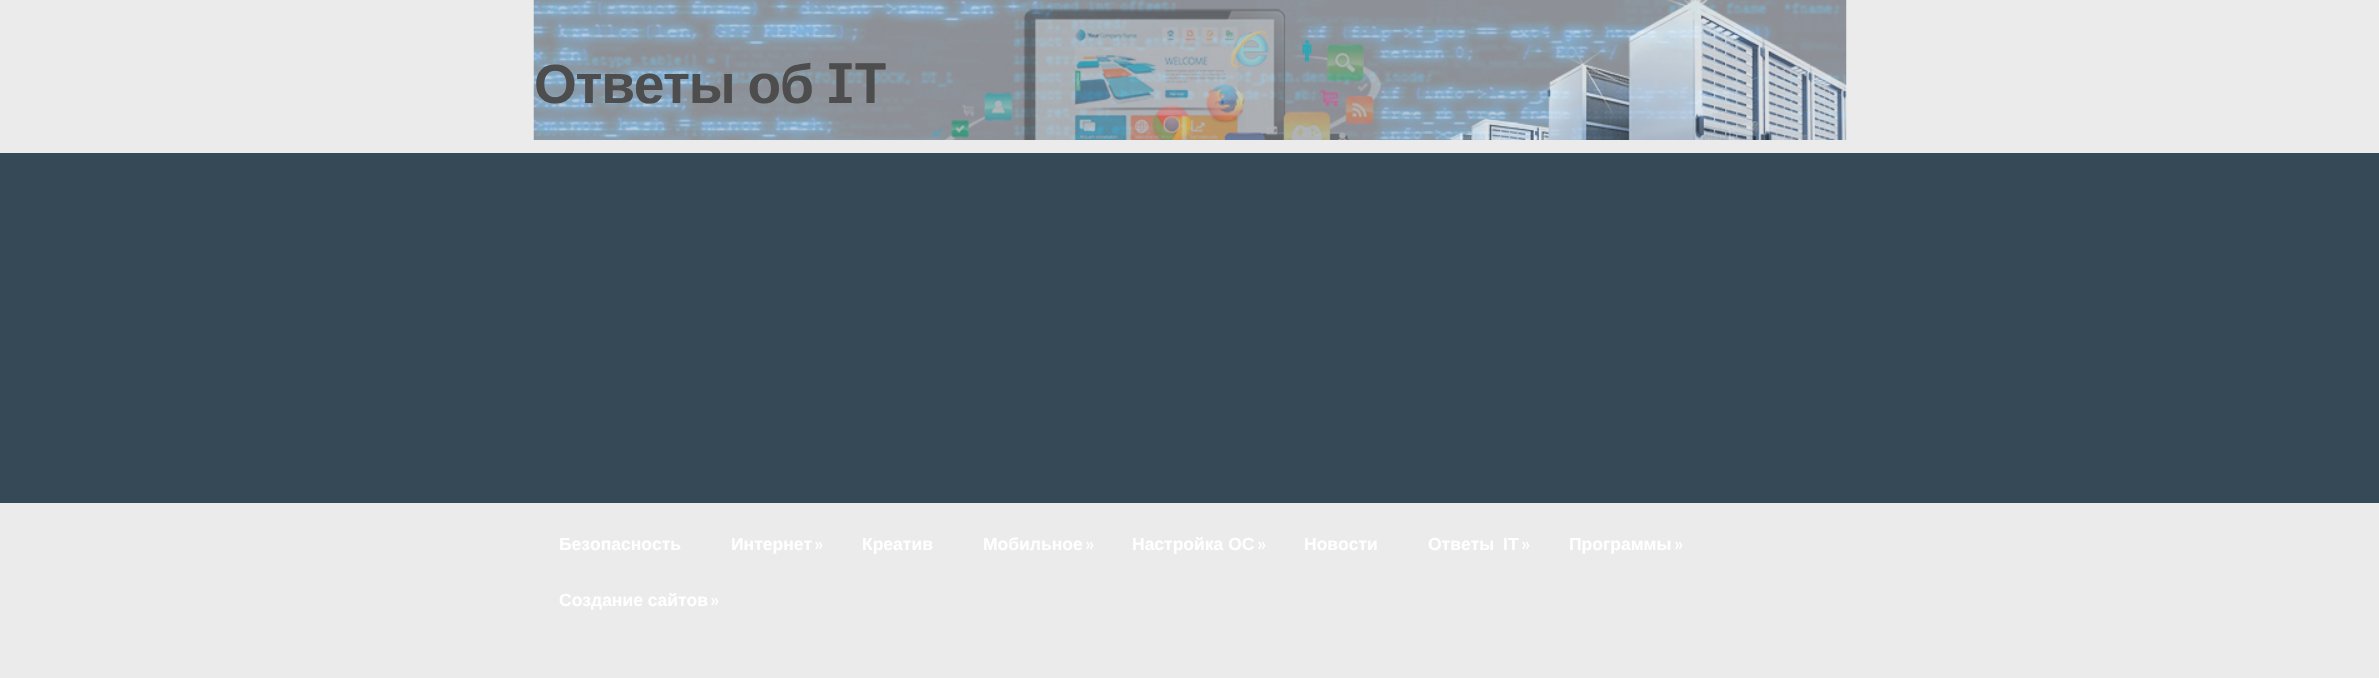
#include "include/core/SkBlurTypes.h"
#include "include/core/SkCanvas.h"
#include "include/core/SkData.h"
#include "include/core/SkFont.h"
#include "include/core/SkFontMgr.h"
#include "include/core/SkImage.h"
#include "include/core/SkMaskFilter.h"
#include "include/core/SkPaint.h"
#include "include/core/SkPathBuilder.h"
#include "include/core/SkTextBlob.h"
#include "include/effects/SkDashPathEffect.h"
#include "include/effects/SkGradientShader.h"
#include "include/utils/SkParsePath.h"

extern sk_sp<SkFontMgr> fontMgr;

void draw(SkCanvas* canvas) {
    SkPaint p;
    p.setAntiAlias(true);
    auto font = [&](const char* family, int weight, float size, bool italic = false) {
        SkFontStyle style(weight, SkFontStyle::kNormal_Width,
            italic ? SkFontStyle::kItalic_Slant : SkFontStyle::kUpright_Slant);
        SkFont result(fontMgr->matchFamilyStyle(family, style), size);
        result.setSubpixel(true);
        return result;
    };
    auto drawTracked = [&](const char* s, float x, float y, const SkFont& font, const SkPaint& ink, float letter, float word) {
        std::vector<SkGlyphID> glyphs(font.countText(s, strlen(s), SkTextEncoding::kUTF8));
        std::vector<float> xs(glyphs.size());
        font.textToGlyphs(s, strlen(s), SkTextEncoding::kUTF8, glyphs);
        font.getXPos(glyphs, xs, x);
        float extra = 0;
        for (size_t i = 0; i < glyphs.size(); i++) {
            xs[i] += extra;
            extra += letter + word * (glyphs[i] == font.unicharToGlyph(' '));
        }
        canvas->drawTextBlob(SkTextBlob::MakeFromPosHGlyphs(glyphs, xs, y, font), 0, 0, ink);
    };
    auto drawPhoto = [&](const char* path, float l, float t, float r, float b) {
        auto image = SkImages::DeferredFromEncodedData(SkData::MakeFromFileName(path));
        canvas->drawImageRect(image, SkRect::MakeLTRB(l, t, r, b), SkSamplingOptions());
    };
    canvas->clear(0xFFEBEBEB);
    drawPhoto("media/1.png", 533, 0, 1847, 140);
    auto font1 = font("Liberation Sans", 700, 55);
    p.setColor(0xFF4D4D4D);
    drawTracked("Ответы об", 534, 103, font1, p, -1.25f, -1);
    auto font2 = font("Monda", 700, 55);
    drawTracked("IT", 825, 103, font2, p, -1.25f, 0);
    p.setColor(0xFF364956);
    canvas->drawRect(SkRect::MakeLTRB(0, 153, 2379, 503), p);
    auto font3 = font("Liberation Sans", 700, 17.5f);
    p.setColor(0xFFFFFFFF);
    canvas->drawString("Безопасность", 559, 550, font3, p);
    canvas->drawString("Интернет", 731, 550, font3, p);
    auto font4 = font("Monda", 700, 17.5f);
    canvas->drawString("»", 814, 550, font4, p);
    canvas->drawString("Креатив", 862, 550, font3, p);
    canvas->drawString("Мобильное", 983, 550, font3, p);
    canvas->drawString("»", 1085, 550, font4, p);
    canvas->drawString("Настройка ОС", 1132, 550, font3, p);
    canvas->drawString("»", 1257, 550, font4, p);
    canvas->drawString("Новости", 1304, 550, font3, p);
    drawTracked("Ответы IT", 1428, 550, font3, p, 0, 4);
    canvas->drawString("»", 1521, 550, font4, p);
    canvas->drawString("Программы", 1569, 550, font3, p);
    canvas->drawString("»", 1674, 550, font4, p);
    canvas->drawString("Создание сайтов", 559, 606, font3, p);
    canvas->drawString("»", 710, 606, font4, p);
}
